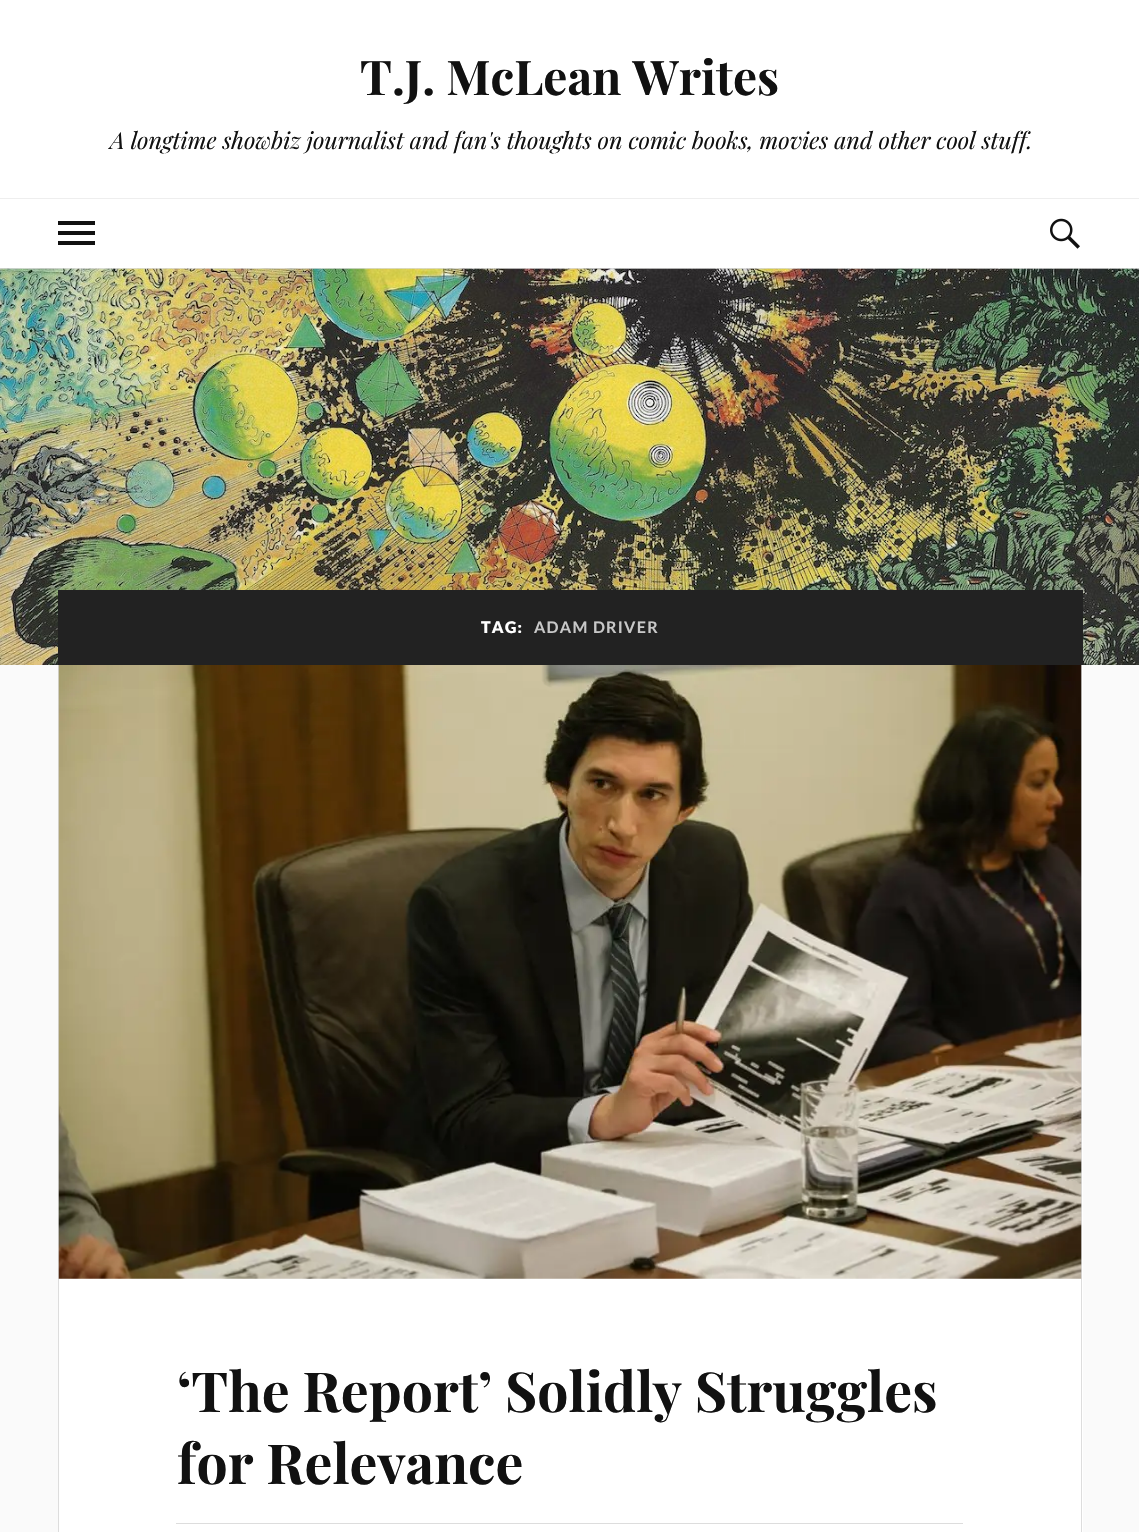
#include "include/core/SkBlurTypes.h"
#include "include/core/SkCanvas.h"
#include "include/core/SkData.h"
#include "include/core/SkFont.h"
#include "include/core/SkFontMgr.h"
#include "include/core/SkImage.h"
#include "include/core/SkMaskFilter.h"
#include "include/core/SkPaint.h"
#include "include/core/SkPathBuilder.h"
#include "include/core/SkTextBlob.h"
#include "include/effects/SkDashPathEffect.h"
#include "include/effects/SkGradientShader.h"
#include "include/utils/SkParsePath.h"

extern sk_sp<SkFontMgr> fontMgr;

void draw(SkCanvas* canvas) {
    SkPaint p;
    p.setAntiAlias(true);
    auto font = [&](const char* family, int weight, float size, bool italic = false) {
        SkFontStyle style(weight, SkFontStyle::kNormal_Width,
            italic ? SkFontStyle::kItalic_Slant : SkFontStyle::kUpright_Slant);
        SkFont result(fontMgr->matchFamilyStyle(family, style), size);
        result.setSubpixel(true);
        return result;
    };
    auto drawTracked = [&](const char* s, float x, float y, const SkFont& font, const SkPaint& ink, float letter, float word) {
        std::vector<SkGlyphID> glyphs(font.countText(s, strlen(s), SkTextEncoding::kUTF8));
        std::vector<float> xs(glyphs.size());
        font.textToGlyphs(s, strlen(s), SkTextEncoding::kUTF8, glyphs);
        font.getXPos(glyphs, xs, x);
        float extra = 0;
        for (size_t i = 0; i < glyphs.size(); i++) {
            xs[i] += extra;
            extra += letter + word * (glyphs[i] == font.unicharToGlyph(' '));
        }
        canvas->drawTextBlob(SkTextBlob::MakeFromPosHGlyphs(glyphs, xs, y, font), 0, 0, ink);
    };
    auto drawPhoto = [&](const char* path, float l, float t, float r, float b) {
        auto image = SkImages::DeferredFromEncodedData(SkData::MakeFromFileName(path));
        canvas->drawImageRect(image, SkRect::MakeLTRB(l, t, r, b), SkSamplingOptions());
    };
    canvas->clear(0xFFFAFAFA);
    p.setColor(0xFFFFFFFF);
    canvas->drawRect(SkRect::MakeLTRB(0, 0, 1139, 198), p);
    auto font1 = font("Playfair Display", 700, 47.75f);
    p.setColor(0xFF111111);
    canvas->drawString("T.J. McLean Writes", 360, 95, font1, p);
    auto font2 = font("Playfair Display", 400, 23.4f, true);
    canvas->drawString("A longtime showbiz journalist and fan's thoughts on comic books, movies and other cool stuff.", 110, 149, font2, p);
    {
        const struct { float l, t, r, b; SkColor color; } items[] = {
            {0, 199, 1139, 268, 0xFFFFFFFF},
            {0, 198, 1139, 199, 0xFFEEEEEE},
            {58, 221, 95, 225, 0xFF111111},
            {58, 231, 95, 235, 0xFF111111},
            {58, 241, 95, 245, 0xFF111111},
        };
        for (auto [l, t, r, b, color] : items) {
            p.setColor(color);
            canvas->drawRect(SkRect::MakeLTRB(l, t, r, b), p);
        }
    }
    drawPhoto("media/1.png", 1050, 218, 1080, 249);
    p.setColor(0xFFDDDDDD);
    canvas->drawRect(SkRect::MakeLTRB(0, 268, 1139, 269), p);
    drawPhoto("media/2.png", 0, 268, 1139, 665);
    p.setColor(0xFF222222);
    canvas->drawRect(SkRect::MakeLTRB(58, 590, 1083, 665), p);
    auto font3 = font("Lato", 900, 16);
    p.setColor(0xFFFFFFFF);
    drawTracked("TAG:", 481, 633, font3, p, 1.25f, 0);
    auto font4 = font("Lato", 700, 16);
    p.setColor(0xFFC8C8C8);
    drawTracked("ADAM DRIVER", 534, 633, font4, p, 1.25f, 0);
    {
        const struct { float l, t, r, b; SkColor color; } items[] = {
            {59, 665, 1083, 1532, 0xFFFFFFFF},
            {1081, 665, 1082, 1532, 0xFFDDDDDD},
            {58, 665, 59, 1532, 0xFFDDDDDD},
        };
        for (auto [l, t, r, b, color] : items) {
            p.setColor(color);
            canvas->drawRect(SkRect::MakeLTRB(l, t, r, b), p);
        }
    }
    drawPhoto("media/3.png", 58, 665, 1082, 1279);
    auto font5 = font("Playfair Display", 700, 55.25f);
    p.setColor(0xFF111111);
    canvas->drawString("‘The Report’ Solidly Struggles", 177, 1412, font5, p);
    canvas->drawString("for Relevance", 177, 1484, font5, p);
    p.setColor(0xFFDDDDDD);
    canvas->drawRect(SkRect::MakeLTRB(176, 1523, 963, 1524), p);
}
